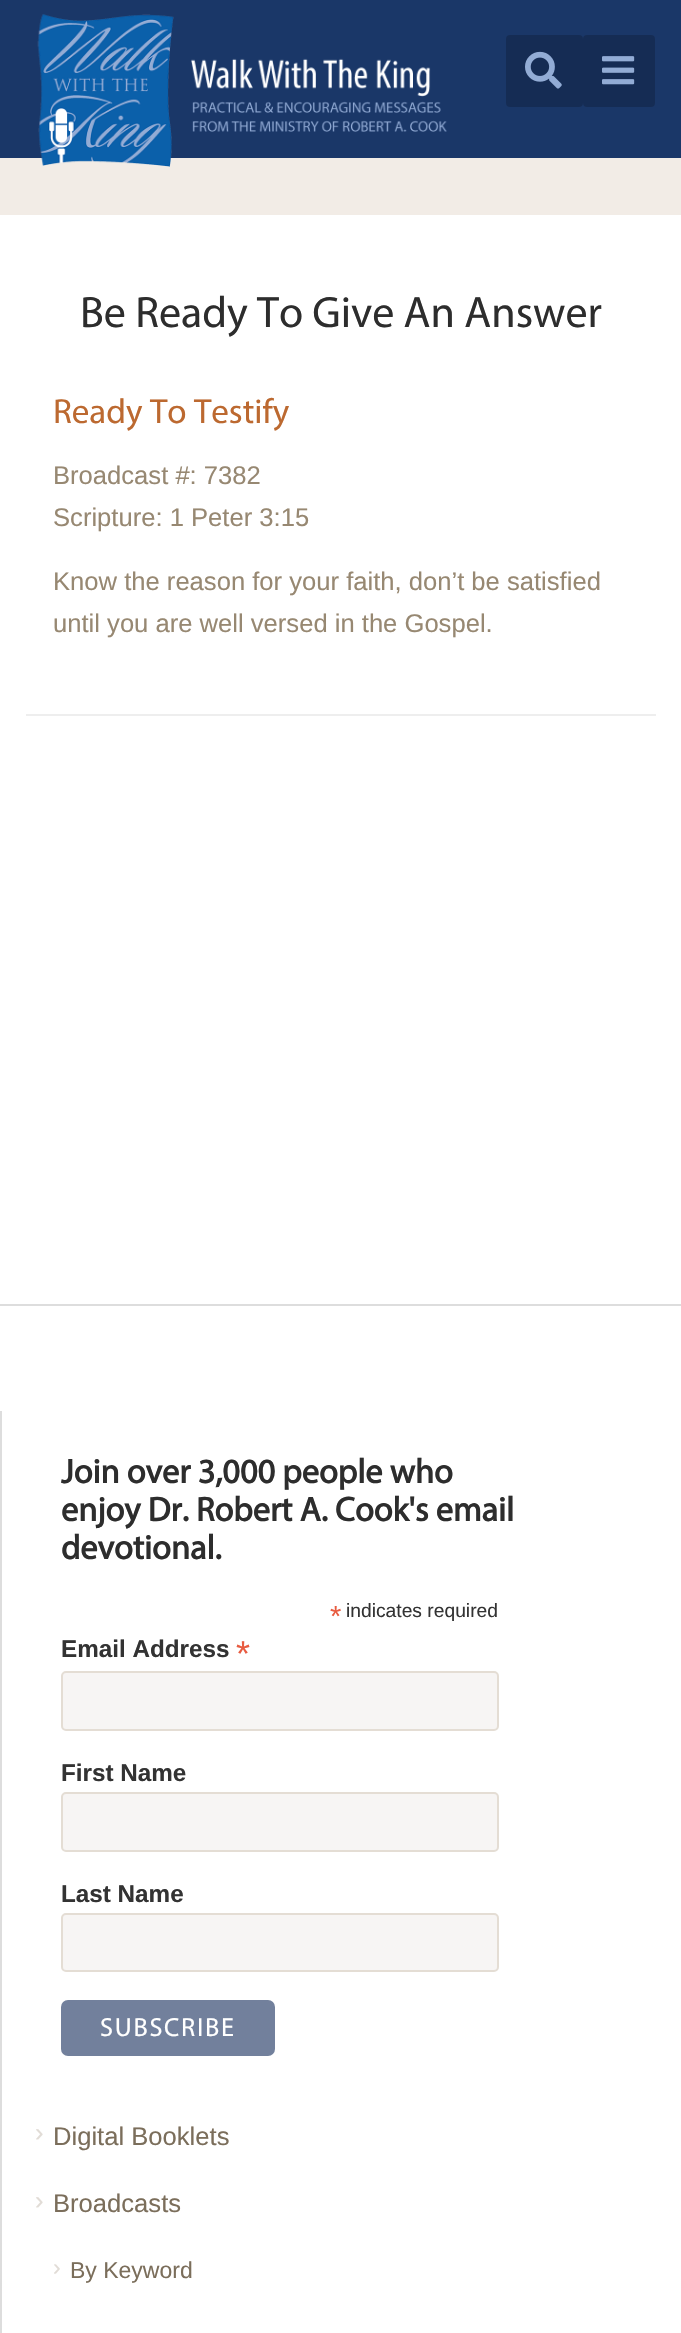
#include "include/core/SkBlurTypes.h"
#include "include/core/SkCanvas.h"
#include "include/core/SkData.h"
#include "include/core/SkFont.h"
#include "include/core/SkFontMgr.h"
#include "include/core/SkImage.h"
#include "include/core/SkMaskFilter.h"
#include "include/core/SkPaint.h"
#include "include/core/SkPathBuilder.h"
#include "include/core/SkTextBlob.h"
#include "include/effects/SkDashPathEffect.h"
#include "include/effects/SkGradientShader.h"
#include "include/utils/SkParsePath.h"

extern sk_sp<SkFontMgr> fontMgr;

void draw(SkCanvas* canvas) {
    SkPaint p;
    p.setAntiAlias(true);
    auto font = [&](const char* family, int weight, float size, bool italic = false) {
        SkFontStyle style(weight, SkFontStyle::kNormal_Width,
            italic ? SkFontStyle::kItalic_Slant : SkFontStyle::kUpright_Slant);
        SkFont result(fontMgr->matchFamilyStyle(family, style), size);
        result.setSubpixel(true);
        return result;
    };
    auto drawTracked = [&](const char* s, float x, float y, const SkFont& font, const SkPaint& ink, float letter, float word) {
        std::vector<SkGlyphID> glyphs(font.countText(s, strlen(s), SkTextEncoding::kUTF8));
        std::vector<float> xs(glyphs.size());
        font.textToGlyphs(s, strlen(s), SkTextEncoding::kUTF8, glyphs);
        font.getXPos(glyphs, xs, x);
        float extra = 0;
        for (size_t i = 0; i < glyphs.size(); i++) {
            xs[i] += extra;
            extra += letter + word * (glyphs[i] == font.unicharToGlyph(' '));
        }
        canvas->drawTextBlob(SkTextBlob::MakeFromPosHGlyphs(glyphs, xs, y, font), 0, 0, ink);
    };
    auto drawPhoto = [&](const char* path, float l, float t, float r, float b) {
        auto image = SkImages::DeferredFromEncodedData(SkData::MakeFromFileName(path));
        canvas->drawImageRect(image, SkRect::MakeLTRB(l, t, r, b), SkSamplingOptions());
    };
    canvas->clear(0xFF1A3768);
    p.setColor(0xFFF2ECE6);
    canvas->drawRect(SkRect::MakeLTRB(0, 158, 681, 215), p);
    drawPhoto("media/1.png", 37, 14, 447, 167);
    p.setColor(0xFF152C54);
    canvas->drawRoundRect(SkRect::MakeLTRB(507, 36, 582, 106), 3, 3, p);
    p.setStyle(SkPaint::kStroke_Style);
    p.setStrokeWidth(2);
    canvas->drawRoundRect(SkRect::MakeLTRB(507, 36, 582, 106), 3, 3, p);
    drawPhoto("media/2.png", 525, 51, 562, 89);
    p.setStyle(SkPaint::kFill_Style);
    canvas->drawRoundRect(SkRect::MakeLTRB(584, 36, 654, 106), 3, 3, p);
    p.setStyle(SkPaint::kStroke_Style);
    canvas->drawRoundRect(SkRect::MakeLTRB(584, 36, 654, 106), 3, 3, p);
    drawPhoto("media/3.png", 602, 56, 635, 85);
    p.setStyle(SkPaint::kFill_Style);
    p.setColor(0xFFFFFFFF);
    canvas->drawRect(SkRect::MakeLTRB(0, 215, 681, 2333), p);
    auto font1 = font("Myriad", 400, 44);
    p.setColor(0xFF2D2D2D);
    canvas->drawString("Be Ready To Give An Answer", 80, 327, font1, p);
    auto font2 = font("Myriad", 400, 35);
    p.setColor(0xFFBC6930);
    canvas->drawString("Ready To Testify", 53, 423, font2, p);
    auto font3 = font("Liberation Sans", 400, 25.6f);
    p.setColor(0xFF978872);
    {
        const struct { const char* s; float x, y; } items[] = {
            {"Broadcast #: 7382", 53, 484},
            {"Scripture: 1 Peter 3:15", 53, 526},
            {"Know the reason for your faith, don’t be satisfied", 53, 590},
            {"until you are well versed in the Gospel.", 53, 632},
        };
        for (auto [s, x, y] : items) {
            canvas->drawString(s, x, y, font3, p);
        }
    }
    {
        const struct { float l, t, r, b; SkColor color; } items[] = {
            {26, 714, 656, 716, 0xFFEEEEEE},
            {0, 1304, 681, 1306, 0xFFDDDDDD},
            {0, 1411, 2, 2333, 0xFFDDDDDD},
        };
        for (auto [l, t, r, b, color] : items) {
            p.setColor(color);
            canvas->drawRect(SkRect::MakeLTRB(l, t, r, b), p);
        }
    }
    auto font4 = font("Myriad", 700, 34.25f);
    p.setColor(0xFF2D2D2D);
    {
        const struct { const char* s; float x, y; } items[] = {
            {"Join over 3,000 people who", 61, 1483},
            {"enjoy Dr. Robert A. Cook's email", 61, 1521},
            {"devotional.", 61, 1559},
        };
        for (auto [s, x, y] : items) {
            canvas->drawString(s, x, y, font4, p);
        }
    }
    auto font5 = font("Liberation Sans", 400, 29);
    p.setColor(0xFFE85C41);
    canvas->drawString("*", 330, 1626, font5, p);
    auto font6 = font("Liberation Sans", 400, 19.25f);
    p.setColor(0xFF333333);
    canvas->drawString("indicates required", 346, 1617, font6, p);
    auto font7 = font("Liberation Sans", 700, 24.25f);
    canvas->drawString("Email Address", 61, 1657, font7, p);
    auto font8 = font("Liberation Sans", 400, 36);
    p.setColor(0xFFE85C41);
    canvas->drawString("*", 236, 1666, font8, p);
    p.setColor(0xFFF7F5F4);
    canvas->drawRoundRect(SkRect::MakeLTRB(62, 1672, 498, 1730), 4, 4, p);
    p.setStyle(SkPaint::kStroke_Style);
    p.setColor(0xFFE4DDD4);
    canvas->drawRoundRect(SkRect::MakeLTRB(62, 1672, 498, 1730), 4, 4, p);
    p.setStyle(SkPaint::kFill_Style);
    p.setColor(0xFF333333);
    canvas->drawString("First Name", 61, 1781, font7, p);
    p.setColor(0xFFF7F5F4);
    canvas->drawRoundRect(SkRect::MakeLTRB(62, 1793, 498, 1851), 4, 4, p);
    p.setStyle(SkPaint::kStroke_Style);
    p.setColor(0xFFE4DDD4);
    canvas->drawRoundRect(SkRect::MakeLTRB(62, 1793, 498, 1851), 4, 4, p);
    p.setStyle(SkPaint::kFill_Style);
    p.setColor(0xFF333333);
    canvas->drawString("Last Name", 61, 1902, font7, p);
    p.setColor(0xFFF7F5F4);
    canvas->drawRoundRect(SkRect::MakeLTRB(62, 1914, 498, 1971), 4, 4, p);
    p.setStyle(SkPaint::kStroke_Style);
    p.setColor(0xFFE4DDD4);
    canvas->drawRoundRect(SkRect::MakeLTRB(62, 1914, 498, 1971), 4, 4, p);
    p.setStyle(SkPaint::kFill_Style);
    p.setColor(0xFF72809C);
    canvas->drawRoundRect(SkRect::MakeLTRB(61, 2000, 275, 2056), 7, 7, p);
    auto font9 = font("Myriad", 400, 26.25f);
    p.setColor(0xFFFFFFFF);
    drawTracked("SUBSCRIBE", 100, 2036, font9, p, 1.75f, 0);
    p.setColor(0xFFE1DCD6);
    canvas->drawString("›", 35, 2141, font3, p);
    p.setColor(0xFF7B6E5B);
    canvas->drawString("Digital Booklets", 53, 2145, font3, p);
    p.setColor(0xFFE1DCD6);
    canvas->drawString("›", 35, 2209, font3, p);
    p.setColor(0xFF7B6E5B);
    canvas->drawString("Broadcasts", 53, 2212, font3, p);
    auto font10 = font("Liberation Sans", 400, 23);
    p.setColor(0xFFE1DCD6);
    canvas->drawString("›", 53, 2275, font10, p);
    p.setColor(0xFF7B6E5B);
    canvas->drawString("By Keyword", 70, 2278, font10, p);
}
